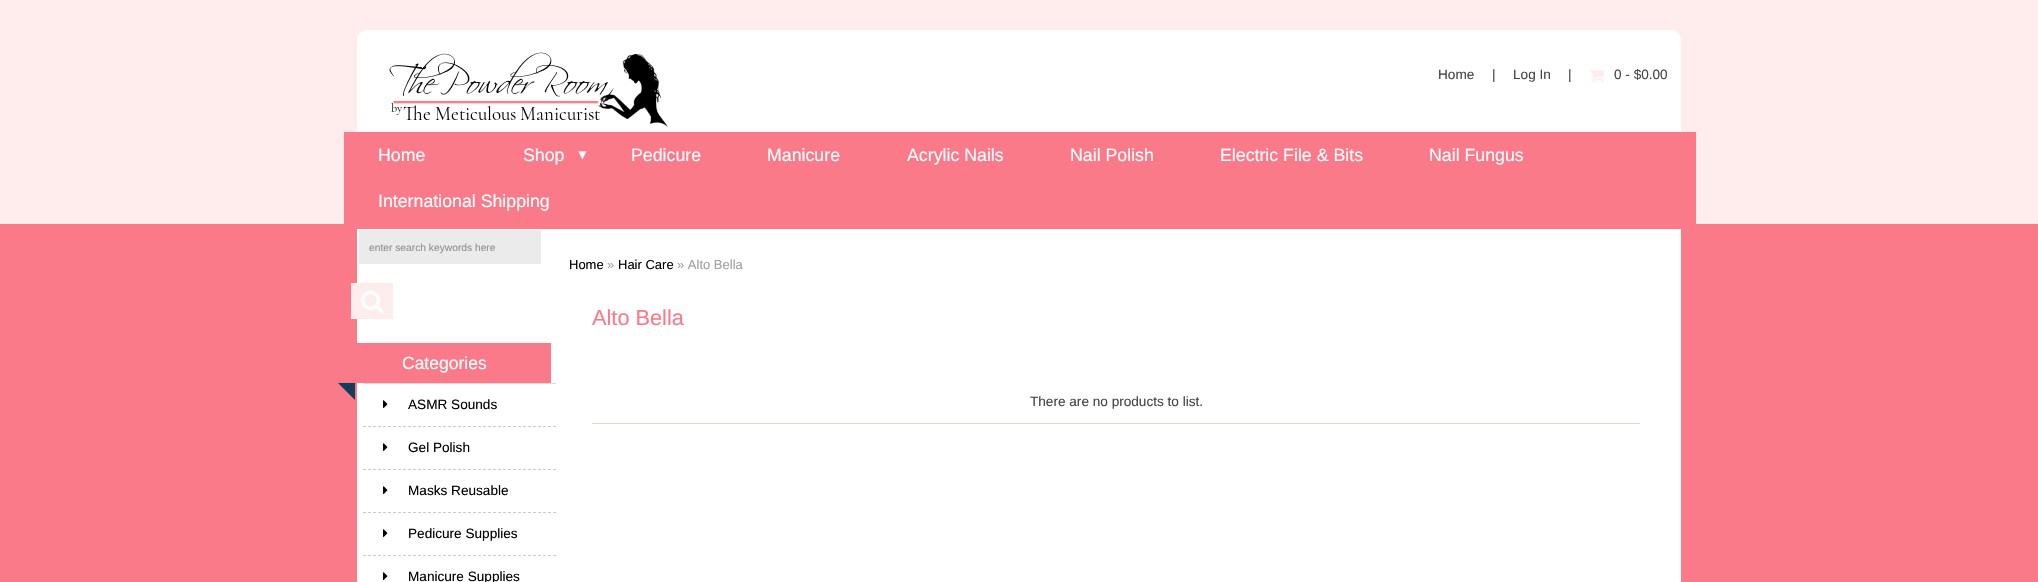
#include "include/core/SkBlurTypes.h"
#include "include/core/SkCanvas.h"
#include "include/core/SkData.h"
#include "include/core/SkFont.h"
#include "include/core/SkFontMgr.h"
#include "include/core/SkImage.h"
#include "include/core/SkMaskFilter.h"
#include "include/core/SkPaint.h"
#include "include/core/SkPathBuilder.h"
#include "include/core/SkTextBlob.h"
#include "include/effects/SkDashPathEffect.h"
#include "include/effects/SkGradientShader.h"
#include "include/utils/SkParsePath.h"

extern sk_sp<SkFontMgr> fontMgr;

void draw(SkCanvas* canvas) {
    SkPaint p;
    p.setAntiAlias(true);
    auto font = [&](const char* family, int weight, float size, bool italic = false) {
        SkFontStyle style(weight, SkFontStyle::kNormal_Width,
            italic ? SkFontStyle::kItalic_Slant : SkFontStyle::kUpright_Slant);
        SkFont result(fontMgr->matchFamilyStyle(family, style), size);
        result.setSubpixel(true);
        return result;
    };
    auto drawPhoto = [&](const char* path, float l, float t, float r, float b) {
        auto image = SkImages::DeferredFromEncodedData(SkData::MakeFromFileName(path));
        canvas->drawImageRect(image, SkRect::MakeLTRB(l, t, r, b), SkSamplingOptions());
    };
    canvas->clear(0xFFFA7A8A);
    p.setColor(0xFFFFECEC);
    canvas->drawRect(SkRect::MakeLTRB(0, 0, 2038, 224), p);
    p.setColor(0xFFFFFFFF);
    canvas->drawPath(SkPathBuilder().moveTo(367, 30).lineTo(1671, 30).cubicTo(1676.5f, 30, 1681, 34.5f, 1681, 40).lineTo(1681, 224).lineTo(357, 224).lineTo(357, 40).cubicTo(357, 34.5f, 361.5f, 30, 367, 30).close().detach(), p);
    drawPhoto("media/1.png", 389, 52, 668, 127);
    auto font1 = font("Liberation Sans", 400, 13.6f);
    p.setColor(0xFF444444);
    {
        const struct { const char* s; float x, y; } items[] = {
            {"Home", 1438, 79},
            {"|", 1492, 79},
            {"Log In", 1513, 79},
            {"|", 1568, 79},
        };
        for (auto [s, x, y] : items) {
            canvas->drawString(s, x, y, font1, p);
        }
    }
    drawPhoto("media/2.png", 1589, 69, 1604, 82);
    canvas->drawString("0 - $0.00", 1614, 79, font1, p);
    p.setColor(0xFFFA7A8A);
    canvas->drawRect(SkRect::MakeLTRB(344, 132, 1696, 224), p);
    auto font2 = font("Liberation Sans", 400, 17.75f);
    p.setColor(0xFFFFFFFF);
    canvas->drawString("Home", 378, 161, font2, p);
    canvas->drawString("Shop", 523, 161, font2, p);
    auto font3 = font("Liberation Sans", 400, 13, true);
    canvas->drawString("▼", 576, 159, font3, p);
    {
        const struct { const char* s; float x, y; } items[] = {
            {"Pedicure", 631, 161},
            {"Manicure", 767, 161},
            {"Acrylic Nails", 907, 161},
            {"Nail Polish", 1070, 161},
            {"Electric File & Bits", 1220, 161},
            {"Nail Fungus", 1429, 161},
            {"International Shipping", 378, 207},
        };
        for (auto [s, x, y] : items) {
            canvas->drawString(s, x, y, font2, p);
        }
    }
    canvas->drawRect(SkRect::MakeLTRB(357, 229, 1681, 582), p);
    p.setColor(0xFFEBEBEB);
    canvas->drawRect(SkRect::MakeLTRB(359, 230, 541, 264), p);
    auto font4 = font("Liberation Sans", 400, 10.25f);
    p.setColor(0xFF8F8F8F);
    canvas->drawString("enter search keywords here", 369, 251, font4, p);
    p.setColor(0xFFFFECEC);
    canvas->drawRect(SkRect::MakeLTRB(351, 283, 393, 319), p);
    drawPhoto("media/3.png", 361, 291, 384, 314);
    p.setColor(0xFFFA7A8A);
    canvas->drawRect(SkRect::MakeLTRB(357, 343, 551, 383), p);
    auto font5 = font("Liberation Sans", 400, 17.5f);
    p.setColor(0xFFFFFFFF);
    canvas->drawString("Categories", 402, 369, font5, p);
    p.setColor(0xFF0F3F57);
    canvas->drawPath(SkPathBuilder().moveTo(338, 383).lineTo(355, 383).lineTo(355, 400).close().detach(), p);
    p.setColor(0xFFDBDBCE);
    canvas->drawRect(SkRect::MakeLTRB(363, 383, 556, 384), p);
    p.setStyle(SkPaint::kStroke_Style);
    p.setStrokeWidth(1);
    p.setColor(0xFFCCCCCC);
    p.setPathEffect(SkDashPathEffect::Make({{3, 2}}, 0));
    canvas->drawPath(SkPathBuilder().moveTo(363, 426.5f).lineTo(556, 426.5f).detach(), p);
    p.setPathEffect(nullptr);
    drawPhoto("media/4.png", 383, 400, 388, 408);
    p.setStyle(SkPaint::kFill_Style);
    p.setColor(0xFF000000);
    canvas->drawString("ASMR Sounds", 408, 409, font1, p);
    p.setStyle(SkPaint::kStroke_Style);
    p.setColor(0xFFCCCCCC);
    p.setPathEffect(SkDashPathEffect::Make({{3, 2}}, 0));
    canvas->drawPath(SkPathBuilder().moveTo(363, 469.5f).lineTo(556, 469.5f).detach(), p);
    p.setPathEffect(nullptr);
    drawPhoto("media/4.png", 383, 443, 388, 451);
    p.setStyle(SkPaint::kFill_Style);
    p.setColor(0xFF000000);
    canvas->drawString("Gel Polish", 408, 452, font1, p);
    p.setStyle(SkPaint::kStroke_Style);
    p.setColor(0xFFCCCCCC);
    p.setPathEffect(SkDashPathEffect::Make({{3, 2}}, 0));
    canvas->drawPath(SkPathBuilder().moveTo(363, 512.5f).lineTo(556, 512.5f).detach(), p);
    p.setPathEffect(nullptr);
    drawPhoto("media/4.png", 383, 486, 388, 494);
    p.setStyle(SkPaint::kFill_Style);
    p.setColor(0xFF000000);
    canvas->drawString("Masks Reusable", 408, 495, font1, p);
    p.setStyle(SkPaint::kStroke_Style);
    p.setColor(0xFFCCCCCC);
    p.setPathEffect(SkDashPathEffect::Make({{3, 2}}, 0));
    canvas->drawPath(SkPathBuilder().moveTo(363, 555.5f).lineTo(556, 555.5f).detach(), p);
    p.setPathEffect(nullptr);
    drawPhoto("media/4.png", 383, 529, 388, 537);
    p.setStyle(SkPaint::kFill_Style);
    p.setColor(0xFF000000);
    canvas->drawString("Pedicure Supplies", 408, 538, font1, p);
    drawPhoto("media/4.png", 383, 572, 388, 580);
    canvas->drawString("Manicure Supplies", 408, 581, font1, p);
    auto font6 = font("Liberation Sans", 400, 13);
    canvas->drawString("Home", 569, 269, font6, p);
    p.setColor(0xFFA0A0A0);
    canvas->drawString("»", 607, 269, font6, p);
    p.setColor(0xFF000000);
    canvas->drawString("Hair Care", 618, 269, font6, p);
    p.setColor(0xFFA0A0A0);
    canvas->drawString("» Alto Bella", 677, 269, font6, p);
    auto font7 = font("Liberation Sans", 400, 21.75f);
    p.setColor(0xFFFA7A8A);
    canvas->drawString("Alto Bella", 592, 325, font7, p);
    p.setColor(0xFFDBDBCE);
    canvas->drawRect(SkRect::MakeLTRB(592, 423, 1640, 424), p);
    p.setColor(0xFF444444);
    canvas->drawString("There are no products to list.", 1030, 406, font1, p);
}
